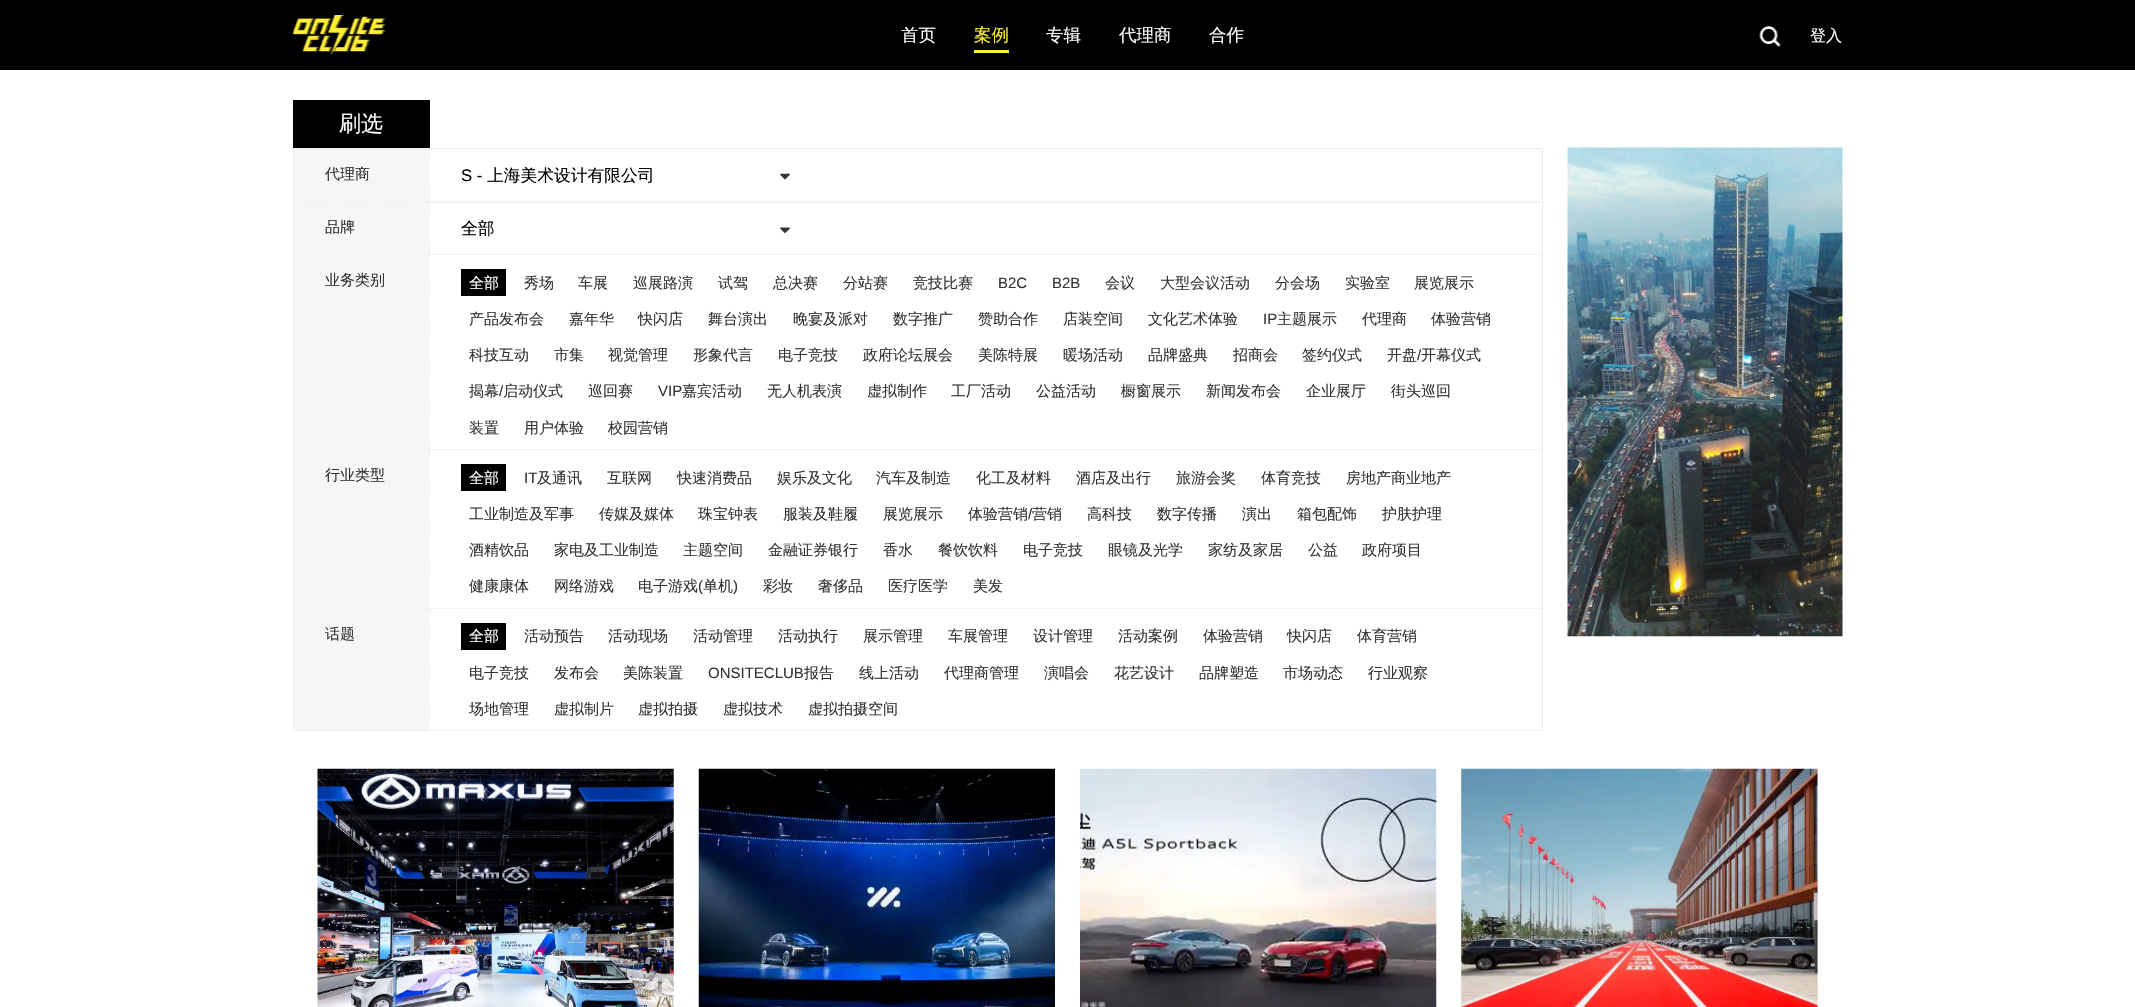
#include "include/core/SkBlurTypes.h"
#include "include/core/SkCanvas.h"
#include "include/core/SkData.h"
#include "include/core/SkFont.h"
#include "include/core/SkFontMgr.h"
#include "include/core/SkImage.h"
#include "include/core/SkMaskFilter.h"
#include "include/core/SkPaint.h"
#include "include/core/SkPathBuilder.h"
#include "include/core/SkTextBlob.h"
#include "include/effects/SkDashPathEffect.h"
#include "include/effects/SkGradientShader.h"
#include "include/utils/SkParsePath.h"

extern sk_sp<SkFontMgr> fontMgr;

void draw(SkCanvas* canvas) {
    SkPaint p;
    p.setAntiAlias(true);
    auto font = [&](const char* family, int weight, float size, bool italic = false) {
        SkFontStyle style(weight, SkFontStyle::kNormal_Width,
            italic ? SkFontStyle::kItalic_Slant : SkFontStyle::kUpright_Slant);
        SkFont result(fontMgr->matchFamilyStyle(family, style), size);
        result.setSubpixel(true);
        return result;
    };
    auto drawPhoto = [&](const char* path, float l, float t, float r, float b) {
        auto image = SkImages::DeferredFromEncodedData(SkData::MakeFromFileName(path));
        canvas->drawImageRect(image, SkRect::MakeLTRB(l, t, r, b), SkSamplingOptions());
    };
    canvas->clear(0xFFFFFFFF);
    p.setColor(0xFF000000);
    canvas->drawRect(SkRect::MakeLTRB(0, 0, 2135, 70), p);
    drawPhoto("media/1.png", 293, 15, 386, 55);
    auto font1 = font("WenQuanYi Zen Hei", 500, 17.5f);
    p.setColor(0xFFFFFFFF);
    canvas->drawString("首页", 901, 41, font1, p);
    p.setColor(0xFFFEEE35);
    canvas->drawString("案例", 974, 41, font1, p);
    canvas->drawRect(SkRect::MakeLTRB(974, 50, 1009, 53), p);
    p.setColor(0xFFFFFFFF);
    {
        const struct { const char* s; float x, y; } items[] = {
            {"专辑", 1046, 41},
            {"代理商", 1119, 41},
            {"合作", 1209, 41},
        };
        for (auto [s, x, y] : items) {
            canvas->drawString(s, x, y, font1, p);
        }
    }
    drawPhoto("media/2.png", 1759, 26, 1781, 47);
    auto font2 = font("WenQuanYi Zen Hei", 500, 16);
    canvas->drawString("登入", 1810, 41, font2, p);
    p.setColor(0xFF000000);
    canvas->drawRect(SkRect::MakeLTRB(293, 100, 430, 148), p);
    auto font3 = font("WenQuanYi Zen Hei", 500, 22);
    p.setColor(0xFFFFFFFF);
    canvas->drawString("刷选", 339, 131, font3, p);
    p.setStyle(SkPaint::kStroke_Style);
    p.setStrokeWidth(1);
    p.setColor(0xFFEDEDED);
    canvas->drawRect(SkRect::MakeLTRB(293.5f, 148.5f, 1542.5f, 730.5f), p);
    p.setStyle(SkPaint::kFill_Style);
    p.setColor(0xFFF6F6F6);
    canvas->drawRect(SkRect::MakeLTRB(294, 149, 1541, 255), p);
    p.setStyle(SkPaint::kStroke_Style);
    p.setStrokeWidth(1.2f);
    p.setColor(0xFFEDEDED);
    p.setPathEffect(SkDashPathEffect::Make({{1.25f, 1.25f}}, 0));
    canvas->drawPath(SkPathBuilder().moveTo(294, 202).lineTo(1541, 202).detach(), p);
    p.setPathEffect(nullptr);
    auto font4 = font("WenQuanYi Zen Hei", 500, 15);
    p.setStyle(SkPaint::kFill_Style);
    p.setColor(0xFF333333);
    canvas->drawString("代理商", 325, 179, font4, p);
    p.setColor(0xFFFFFFFF);
    canvas->drawRect(SkRect::MakeLTRB(429, 149, 1541, 201), p);
    p.setStyle(SkPaint::kStroke_Style);
    p.setColor(0xFFEDEDED);
    p.setPathEffect(SkDashPathEffect::Make({{1.25f, 1.25f}}, 0));
    canvas->drawPath(SkPathBuilder().moveTo(429.5f, 149).lineTo(429.5f, 201).detach(), p);
    p.setPathEffect(nullptr);
    auto font5 = font("Liberation Sans", 400, 16.75f);
    p.setStyle(SkPaint::kFill_Style);
    p.setColor(0xFF000000);
    canvas->drawString("S -", 461, 181, font5, p);
    auto font6 = font("WenQuanYi Zen Hei", 500, 16.75f);
    canvas->drawString("上海美术设计有限公司", 487, 181, font6, p);
    drawPhoto("media/3.png", 780, 173, 790, 180);
    p.setStyle(SkPaint::kStroke_Style);
    p.setColor(0xFFEDEDED);
    p.setPathEffect(SkDashPathEffect::Make({{1.25f, 1.25f}}, 0));
    canvas->drawPath(SkPathBuilder().moveTo(294, 254.5f).lineTo(1541, 254.5f).detach(), p);
    p.setPathEffect(nullptr);
    p.setStyle(SkPaint::kFill_Style);
    p.setColor(0xFF333333);
    canvas->drawString("品牌", 325, 232, font4, p);
    p.setColor(0xFFFFFFFF);
    canvas->drawRect(SkRect::MakeLTRB(429, 203, 1541, 254), p);
    p.setStyle(SkPaint::kStroke_Style);
    p.setColor(0xFFEDEDED);
    p.setPathEffect(SkDashPathEffect::Make({{1.25f, 1.25f}}, 0));
    canvas->drawPath(SkPathBuilder().moveTo(429.5f, 202.5f).lineTo(429.5f, 254).detach(), p);
    p.setPathEffect(nullptr);
    p.setStyle(SkPaint::kFill_Style);
    p.setColor(0xFF000000);
    canvas->drawString("全部", 461, 234, font6, p);
    drawPhoto("media/4.png", 780, 227, 790, 233);
    p.setColor(0xFFF6F6F6);
    canvas->drawRect(SkRect::MakeLTRB(294, 255, 1541, 450), p);
    p.setStyle(SkPaint::kStroke_Style);
    p.setColor(0xFFEDEDED);
    p.setPathEffect(SkDashPathEffect::Make({{1.25f, 1.25f}}, 0));
    canvas->drawPath(SkPathBuilder().moveTo(294, 449.5f).lineTo(1541, 449.5f).detach(), p);
    p.setPathEffect(nullptr);
    p.setStyle(SkPaint::kFill_Style);
    p.setColor(0xFF333333);
    canvas->drawString("业务类别", 325, 285, font4, p);
    p.setColor(0xFFFFFFFF);
    canvas->drawRect(SkRect::MakeLTRB(429, 255, 1541, 449), p);
    p.setStyle(SkPaint::kStroke_Style);
    p.setColor(0xFFEDEDED);
    p.setPathEffect(SkDashPathEffect::Make({{1.25f, 1.25f}}, 0));
    canvas->drawPath(SkPathBuilder().moveTo(429.5f, 255).lineTo(429.5f, 449).detach(), p);
    p.setPathEffect(nullptr);
    p.setStyle(SkPaint::kFill_Style);
    p.setColor(0xFF000000);
    canvas->drawRect(SkRect::MakeLTRB(461, 269, 506, 296), p);
    p.setColor(0xFFFFFFFF);
    canvas->drawString("全部", 469, 288, font4, p);
    p.setColor(0xFF333333);
    {
        const struct { const char* s; float x, y; } items[] = {
            {"秀场", 524, 288},
            {"车展", 578, 288},
            {"巡展路演", 633, 288},
            {"试驾", 718, 288},
            {"总决赛", 773, 288},
            {"分站赛", 843, 288},
            {"竞技比赛", 913, 288},
        };
        for (auto [s, x, y] : items) {
            canvas->drawString(s, x, y, font4, p);
        }
    }
    auto font7 = font("Liberation Sans", 400, 15);
    canvas->drawString("B2C", 998, 288, font7, p);
    canvas->drawString("B2B", 1052, 288, font7, p);
    {
        const struct { const char* s; float x, y; } items[] = {
            {"会议", 1105, 288},
            {"大型会议活动", 1160, 288},
            {"分会场", 1275, 288},
            {"实验室", 1345, 288},
            {"展览展示", 1414, 288},
            {"产品发布会", 469, 324},
            {"嘉年华", 569, 324},
            {"快闪店", 638, 324},
            {"舞台演出", 708, 324},
            {"晚宴及派对", 793, 324},
            {"数字推广", 893, 324},
            {"赞助合作", 978, 324},
            {"店装空间", 1063, 324},
            {"文化艺术体验", 1148, 324},
        };
        for (auto [s, x, y] : items) {
            canvas->drawString(s, x, y, font4, p);
        }
    }
    canvas->drawString("IP", 1263, 324, font7, p);
    {
        const struct { const char* s; float x, y; } items[] = {
            {"主题展示", 1277, 324},
            {"代理商", 1362, 324},
            {"体验营销", 1431, 324},
            {"科技互动", 469, 360},
            {"市集", 554, 360},
            {"视觉管理", 608, 360},
            {"形象代言", 693, 360},
            {"电子竞技", 778, 360},
            {"政府论坛展会", 863, 360},
            {"美陈特展", 978, 360},
            {"暖场活动", 1063, 360},
            {"品牌盛典", 1148, 360},
            {"招商会", 1233, 360},
            {"签约仪式", 1302, 360},
            {"开盘", 1387, 360},
        };
        for (auto [s, x, y] : items) {
            canvas->drawString(s, x, y, font4, p);
        }
    }
    canvas->drawString("/", 1417, 360, font7, p);
    canvas->drawString("开幕仪式", 1421, 360, font4, p);
    canvas->drawString("揭幕", 469, 396, font4, p);
    canvas->drawString("/", 499, 396, font7, p);
    canvas->drawString("启动仪式", 503, 396, font4, p);
    canvas->drawString("巡回赛", 588, 396, font4, p);
    canvas->drawString("VIP", 658, 396, font7, p);
    {
        const struct { const char* s; float x, y; } items[] = {
            {"嘉宾活动", 682, 396},
            {"无人机表演", 767, 396},
            {"虚拟制作", 867, 396},
            {"工厂活动", 951, 396},
            {"公益活动", 1036, 396},
            {"橱窗展示", 1121, 396},
            {"新闻发布会", 1206, 396},
            {"企业展厅", 1306, 396},
            {"街头巡回", 1391, 396},
            {"装置", 469, 433},
            {"用户体验", 524, 433},
            {"校园营销", 608, 433},
        };
        for (auto [s, x, y] : items) {
            canvas->drawString(s, x, y, font4, p);
        }
    }
    p.setColor(0xFFF6F6F6);
    canvas->drawRect(SkRect::MakeLTRB(294, 450, 1541, 609), p);
    p.setStyle(SkPaint::kStroke_Style);
    p.setColor(0xFFEDEDED);
    p.setPathEffect(SkDashPathEffect::Make({{1.25f, 1.25f}}, 0));
    canvas->drawPath(SkPathBuilder().moveTo(294, 608).lineTo(1541, 608).detach(), p);
    p.setPathEffect(nullptr);
    p.setStyle(SkPaint::kFill_Style);
    p.setColor(0xFF333333);
    canvas->drawString("行业类型", 325, 480, font4, p);
    p.setColor(0xFFFFFFFF);
    canvas->drawRect(SkRect::MakeLTRB(429, 450, 1541, 608), p);
    p.setStyle(SkPaint::kStroke_Style);
    p.setColor(0xFFEDEDED);
    p.setPathEffect(SkDashPathEffect::Make({{1.25f, 1.25f}}, 0));
    canvas->drawPath(SkPathBuilder().moveTo(429.5f, 450).lineTo(429.5f, 607.5f).detach(), p);
    p.setPathEffect(nullptr);
    p.setStyle(SkPaint::kFill_Style);
    p.setColor(0xFF000000);
    canvas->drawRect(SkRect::MakeLTRB(461, 464, 506, 491), p);
    p.setColor(0xFFFFFFFF);
    canvas->drawString("全部", 469, 483, font4, p);
    p.setColor(0xFF333333);
    canvas->drawString("IT", 524, 483, font7, p);
    {
        const struct { const char* s; float x, y; } items[] = {
            {"及通讯", 537, 483},
            {"互联网", 607, 483},
            {"快速消费品", 677, 483},
            {"娱乐及文化", 777, 483},
            {"汽车及制造", 876, 483},
            {"化工及材料", 976, 483},
            {"酒店及出行", 1076, 483},
            {"旅游会奖", 1176, 483},
            {"体育竞技", 1261, 483},
            {"房地产商业地产", 1346, 483},
            {"工业制造及军事", 469, 519},
            {"传媒及媒体", 599, 519},
            {"珠宝钟表", 698, 519},
            {"服装及鞋履", 783, 519},
            {"展览展示", 883, 519},
            {"体验营销", 968, 519},
        };
        for (auto [s, x, y] : items) {
            canvas->drawString(s, x, y, font4, p);
        }
    }
    canvas->drawString("/", 1028, 519, font7, p);
    {
        const struct { const char* s; float x, y; } items[] = {
            {"营销", 1032, 519},
            {"高科技", 1087, 519},
            {"数字传播", 1157, 519},
            {"演出", 1242, 519},
            {"箱包配饰", 1297, 519},
            {"护肤护理", 1382, 519},
            {"酒精饮品", 469, 555},
            {"家电及工业制造", 554, 555},
            {"主题空间", 683, 555},
            {"金融证券银行", 768, 555},
            {"香水", 883, 555},
            {"餐饮饮料", 938, 555},
            {"电子竞技", 1023, 555},
            {"眼镜及光学", 1108, 555},
            {"家纺及家居", 1208, 555},
            {"公益", 1308, 555},
            {"政府项目", 1362, 555},
            {"健康康体", 469, 591},
            {"网络游戏", 554, 591},
            {"电子游戏", 638, 591},
        };
        for (auto [s, x, y] : items) {
            canvas->drawString(s, x, y, font4, p);
        }
    }
    canvas->drawString("(", 698, 591, font7, p);
    canvas->drawString("单机", 703, 591, font4, p);
    canvas->drawString(")", 733, 591, font7, p);
    {
        const struct { const char* s; float x, y; } items[] = {
            {"彩妆", 763, 591},
            {"奢侈品", 818, 591},
            {"医疗医学", 888, 591},
            {"美发", 973, 591},
        };
        for (auto [s, x, y] : items) {
            canvas->drawString(s, x, y, font4, p);
        }
    }
    p.setColor(0xFFF6F6F6);
    canvas->drawRect(SkRect::MakeLTRB(294, 609, 429, 730), p);
    p.setColor(0xFF333333);
    canvas->drawString("话题", 325, 639, font4, p);
    p.setStyle(SkPaint::kStroke_Style);
    p.setColor(0xFFEDEDED);
    p.setPathEffect(SkDashPathEffect::Make({{1.25f, 1.25f}}, 0));
    canvas->drawPath(SkPathBuilder().moveTo(429.5f, 609).lineTo(429.5f, 730).detach(), p);
    p.setPathEffect(nullptr);
    p.setStyle(SkPaint::kFill_Style);
    p.setColor(0xFF000000);
    canvas->drawRect(SkRect::MakeLTRB(461, 623, 506, 650), p);
    p.setColor(0xFFFFFFFF);
    canvas->drawString("全部", 469, 641, font4, p);
    p.setColor(0xFF333333);
    {
        const struct { const char* s; float x, y; } items[] = {
            {"活动预告", 524, 641},
            {"活动现场", 608, 641},
            {"活动管理", 693, 641},
            {"活动执行", 778, 641},
            {"展示管理", 863, 641},
            {"车展管理", 948, 641},
            {"设计管理", 1033, 641},
            {"活动案例", 1118, 641},
            {"体验营销", 1203, 641},
            {"快闪店", 1287, 641},
            {"体育营销", 1357, 641},
            {"电子竞技", 469, 678},
            {"发布会", 554, 678},
            {"美陈装置", 623, 678},
        };
        for (auto [s, x, y] : items) {
            canvas->drawString(s, x, y, font4, p);
        }
    }
    canvas->drawString("ONSITECLUB", 708, 678, font7, p);
    {
        const struct { const char* s; float x, y; } items[] = {
            {"报告", 804, 678},
            {"线上活动", 859, 678},
            {"代理商管理", 944, 678},
            {"演唱会", 1044, 678},
            {"花艺设计", 1114, 678},
            {"品牌塑造", 1199, 678},
            {"市场动态", 1283, 678},
            {"行业观察", 1368, 678},
            {"场地管理", 469, 714},
            {"虚拟制片", 554, 714},
            {"虚拟拍摄", 638, 714},
            {"虚拟技术", 723, 714},
            {"虚拟拍摄空间", 808, 714},
        };
        for (auto [s, x, y] : items) {
            canvas->drawString(s, x, y, font4, p);
        }
    }
    drawPhoto("media/5.png", 1567, 147, 1843, 637);
    drawPhoto("media/6.png", 317, 768, 674, 1007);
    drawPhoto("media/7.png", 698, 768, 1055, 1007);
    drawPhoto("media/8.png", 1080, 768, 1437, 1007);
    p.setColor(0xFFEEEEEE);
    canvas->drawRect(SkRect::MakeLTRB(1461, 769, 1818, 1007), p);
    drawPhoto("media/9.png", 1461, 768, 1818, 1007);
}
